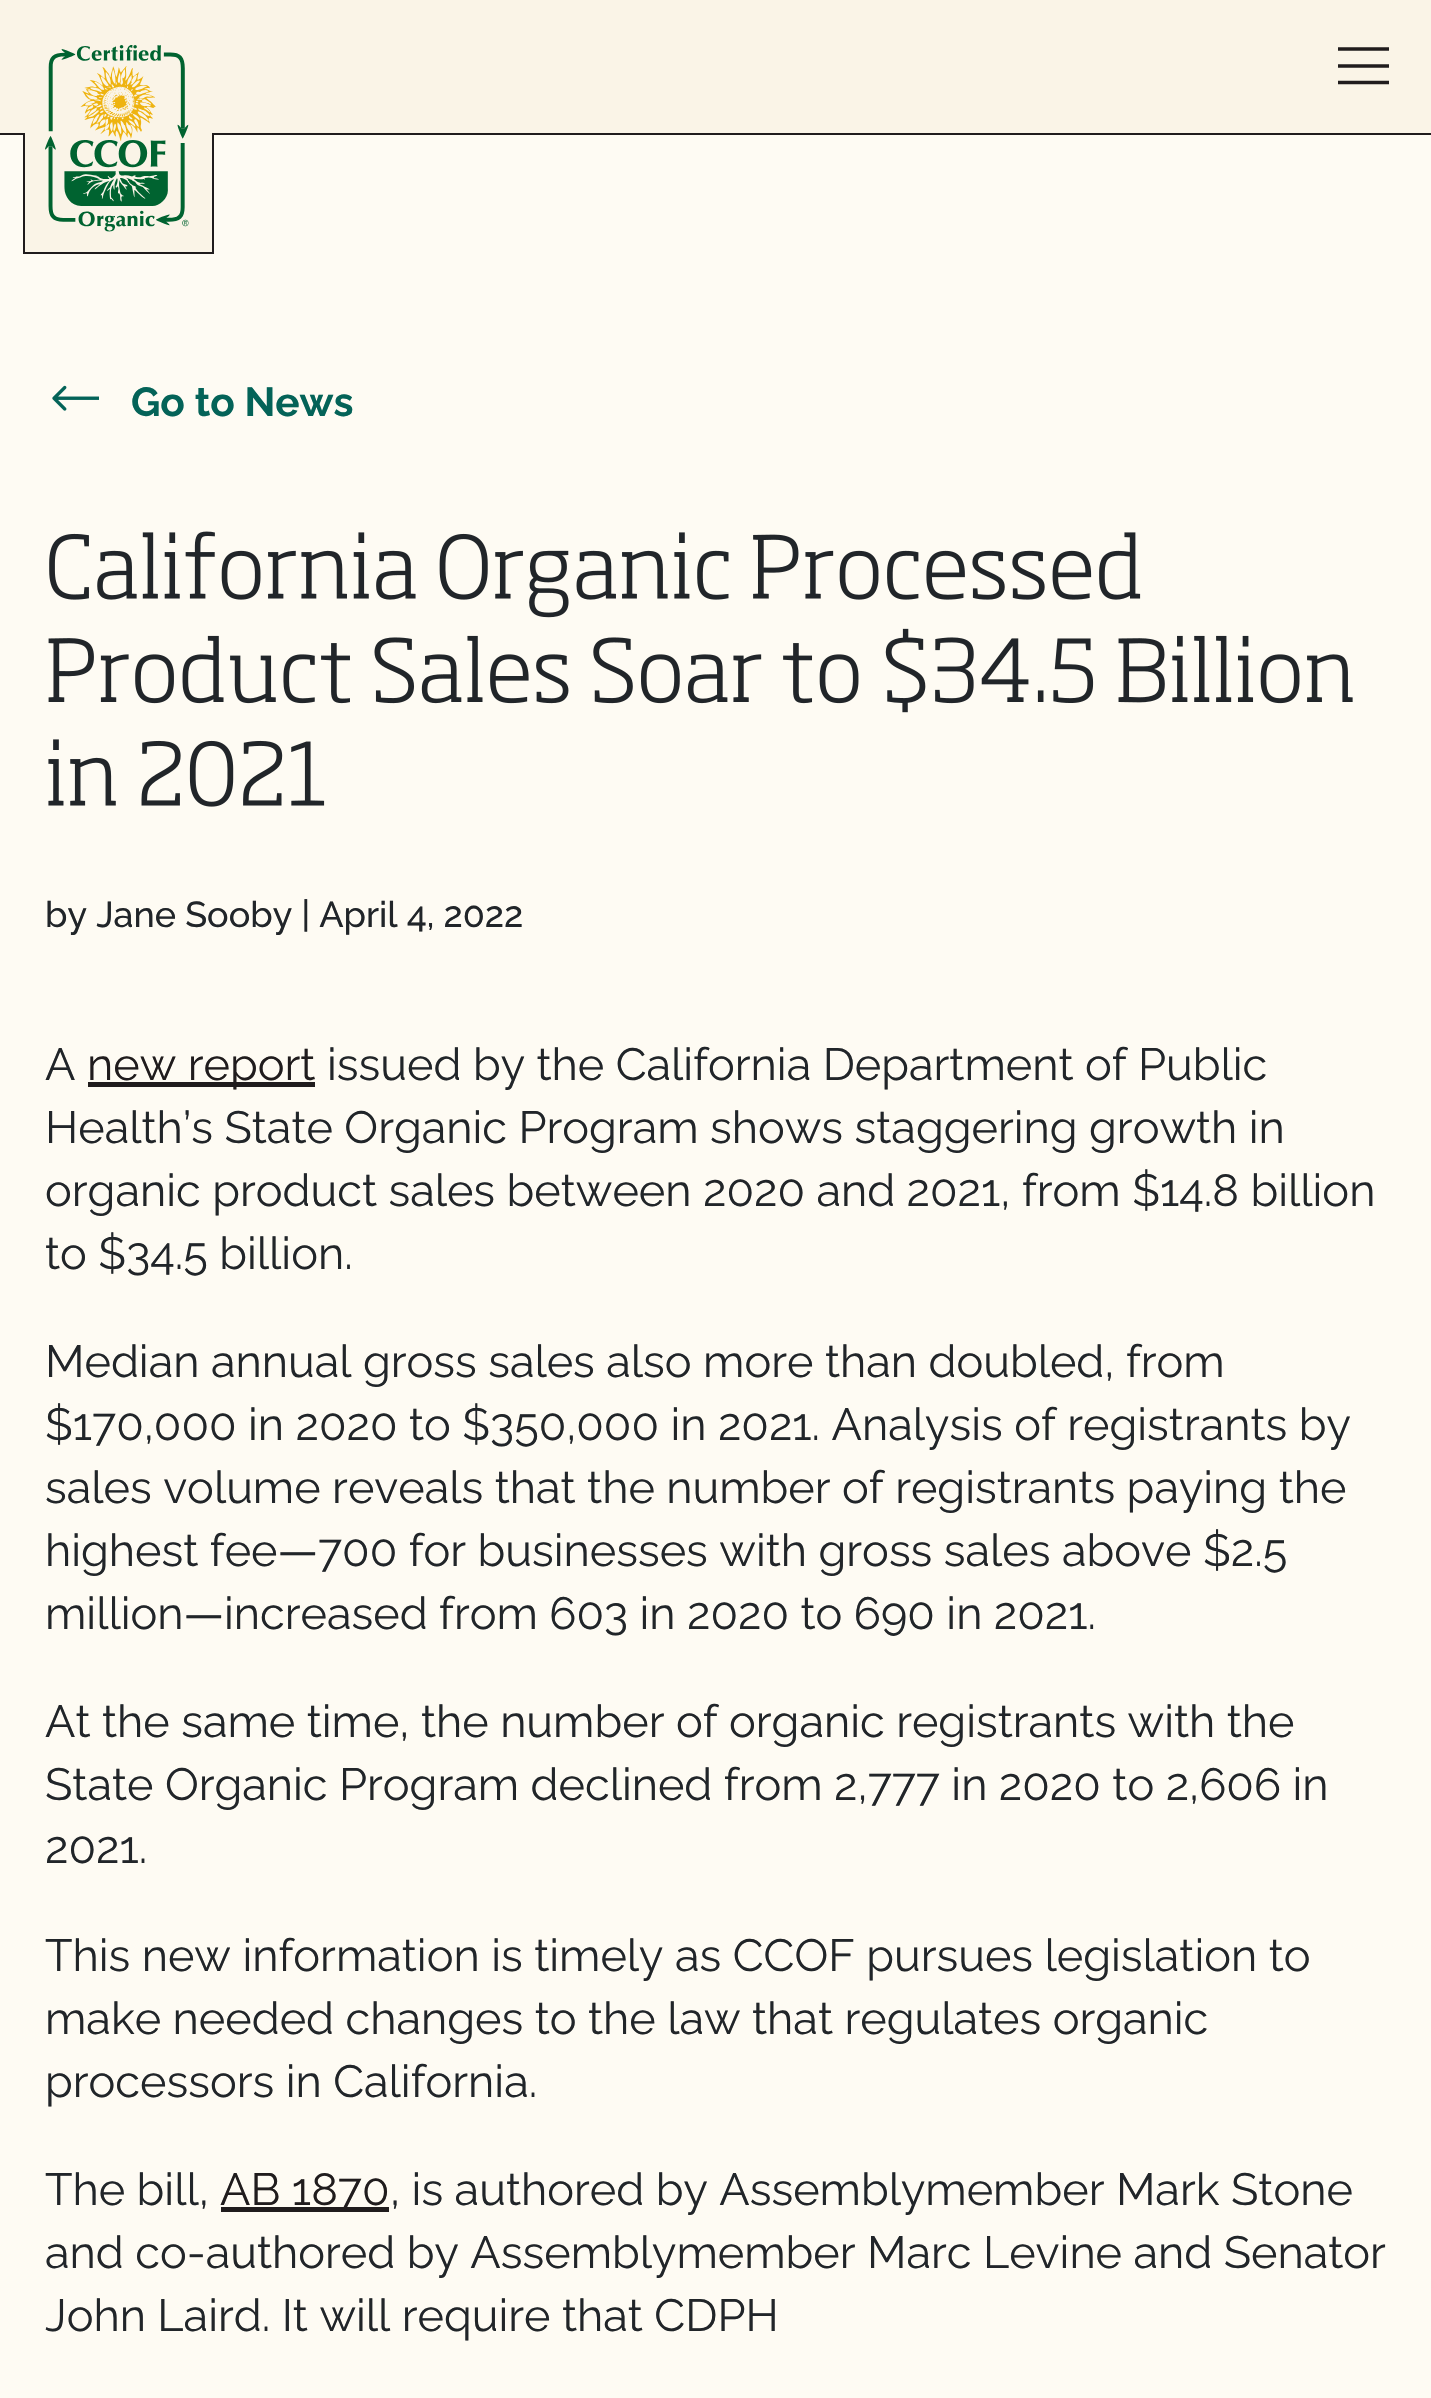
#include "include/core/SkBlurTypes.h"
#include "include/core/SkCanvas.h"
#include "include/core/SkData.h"
#include "include/core/SkFont.h"
#include "include/core/SkFontMgr.h"
#include "include/core/SkImage.h"
#include "include/core/SkMaskFilter.h"
#include "include/core/SkPaint.h"
#include "include/core/SkPathBuilder.h"
#include "include/core/SkTextBlob.h"
#include "include/effects/SkDashPathEffect.h"
#include "include/effects/SkGradientShader.h"
#include "include/utils/SkParsePath.h"

extern sk_sp<SkFontMgr> fontMgr;

void draw(SkCanvas* canvas) {
    SkPaint p;
    p.setAntiAlias(true);
    auto font = [&](const char* family, int weight, float size, bool italic = false) {
        SkFontStyle style(weight, SkFontStyle::kNormal_Width,
            italic ? SkFontStyle::kItalic_Slant : SkFontStyle::kUpright_Slant);
        SkFont result(fontMgr->matchFamilyStyle(family, style), size);
        result.setSubpixel(true);
        return result;
    };
    auto drawPhoto = [&](const char* path, float l, float t, float r, float b) {
        auto image = SkImages::DeferredFromEncodedData(SkData::MakeFromFileName(path));
        canvas->drawImageRect(image, SkRect::MakeLTRB(l, t, r, b), SkSamplingOptions());
    };
    canvas->clear(0xFFFEFBF3);
    {
        const struct { float l, t, r, b; SkColor color; } items[] = {
            {0, 0, 1431, 133, 0xFFFAF4E7},
            {0, 133, 1431, 135, 0xFF201C1D},
            {23, 133, 212, 252, 0xFFFAF4E7},
        };
        for (auto [l, t, r, b, color] : items) {
            p.setColor(color);
            canvas->drawRect(SkRect::MakeLTRB(l, t, r, b), p);
        }
    }
    drawPhoto("media/1.png", 45, 45, 189, 232);
    {
        const struct { float l, t, r, b; SkColor color; } items[] = {
            {212, 133, 214, 254, 0xFF201C1D},
            {23, 252, 214, 254, 0xFF201C1D},
            {23, 133, 25, 254, 0xFF201C1D},
        };
        for (auto [l, t, r, b, color] : items) {
            p.setColor(color);
            canvas->drawRect(SkRect::MakeLTRB(l, t, r, b), p);
        }
    }
    p.setStyle(SkPaint::kStroke_Style);
    p.setStrokeWidth(3.4f);
    canvas->drawPath(SkPathBuilder().moveTo(1338, 49).lineTo(1389, 49).moveTo(1338, 66).lineTo(1389, 66).moveTo(1338, 82.5f).lineTo(1389, 82.5f).detach(), p);
    drawPhoto("media/2.png", 52, 385, 99, 411);
    auto font1 = font("Raleway", 700, 40.5f);
    p.setStyle(SkPaint::kFill_Style);
    p.setColor(0xFF046358);
    canvas->drawString("Go to News", 131, 416, font1, p);
    drawPhoto("media/3.png", 49, 531, 1141, 618);
    drawPhoto("media/4.png", 48, 628, 1353, 713);
    drawPhoto("media/5.png", 48, 739, 325, 807);
    auto font2 = font("Raleway", 500, 36);
    p.setColor(0xFF212529);
    canvas->drawString("by Jane Sooby | April 4, 2022", 45, 927, font2, p);
    auto font3 = font("Raleway", 400, 45);
    canvas->drawString("A", 45, 1080, font3, p);
    p.setColor(0xFF201C1D);
    canvas->drawRect(SkRect::MakeLTRB(88, 1082, 315, 1087), p);
    canvas->drawString("new report", 87, 1080, font3, p);
    p.setColor(0xFF212529);
    {
        const struct { const char* s; float x, y; } items[] = {
            {"issued by the California Department of Public", 327, 1080},
            {"Health’s State Organic Program shows staggering growth in", 45, 1143},
            {"organic product sales between 2020 and 2021, from $14.8 billion", 45, 1206},
            {"to $34.5 billion.", 45, 1269},
            {"Median annual gross sales also more than doubled, from", 45, 1377},
            {"$170,000 in 2020 to $350,000 in 2021. Analysis of registrants by", 45, 1440},
            {"sales volume reveals that the number of registrants paying the", 45, 1503},
            {"highest fee—700 for businesses with gross sales above $2.5", 45, 1566},
            {"million—increased from 603 in 2020 to 690 in 2021.", 45, 1629},
            {"At the same time, the number of organic registrants with the", 45, 1737},
            {"State Organic Program declined from 2,777 in 2020 to 2,606 in", 45, 1800},
            {"2021.", 45, 1863},
            {"This new information is timely as CCOF pursues legislation to", 45, 1971},
            {"make needed changes to the law that regulates organic", 45, 2034},
            {"processors in California.", 45, 2097},
            {"The bill,", 45, 2205},
        };
        for (auto [s, x, y] : items) {
            canvas->drawString(s, x, y, font3, p);
        }
    }
    p.setColor(0xFF201C1D);
    canvas->drawRect(SkRect::MakeLTRB(221, 2207, 389, 2212), p);
    canvas->drawString("AB 1870", 220, 2205, font3, p);
    p.setColor(0xFF212529);
    {
        const struct { const char* s; float x, y; } items[] = {
            {", is authored by Assemblymember Mark Stone", 390, 2205},
            {"and co-authored by Assemblymember Marc Levine and Senator", 45, 2268},
            {"John Laird. It will require that CDPH", 45, 2331},
        };
        for (auto [s, x, y] : items) {
            canvas->drawString(s, x, y, font3, p);
        }
    }
}
